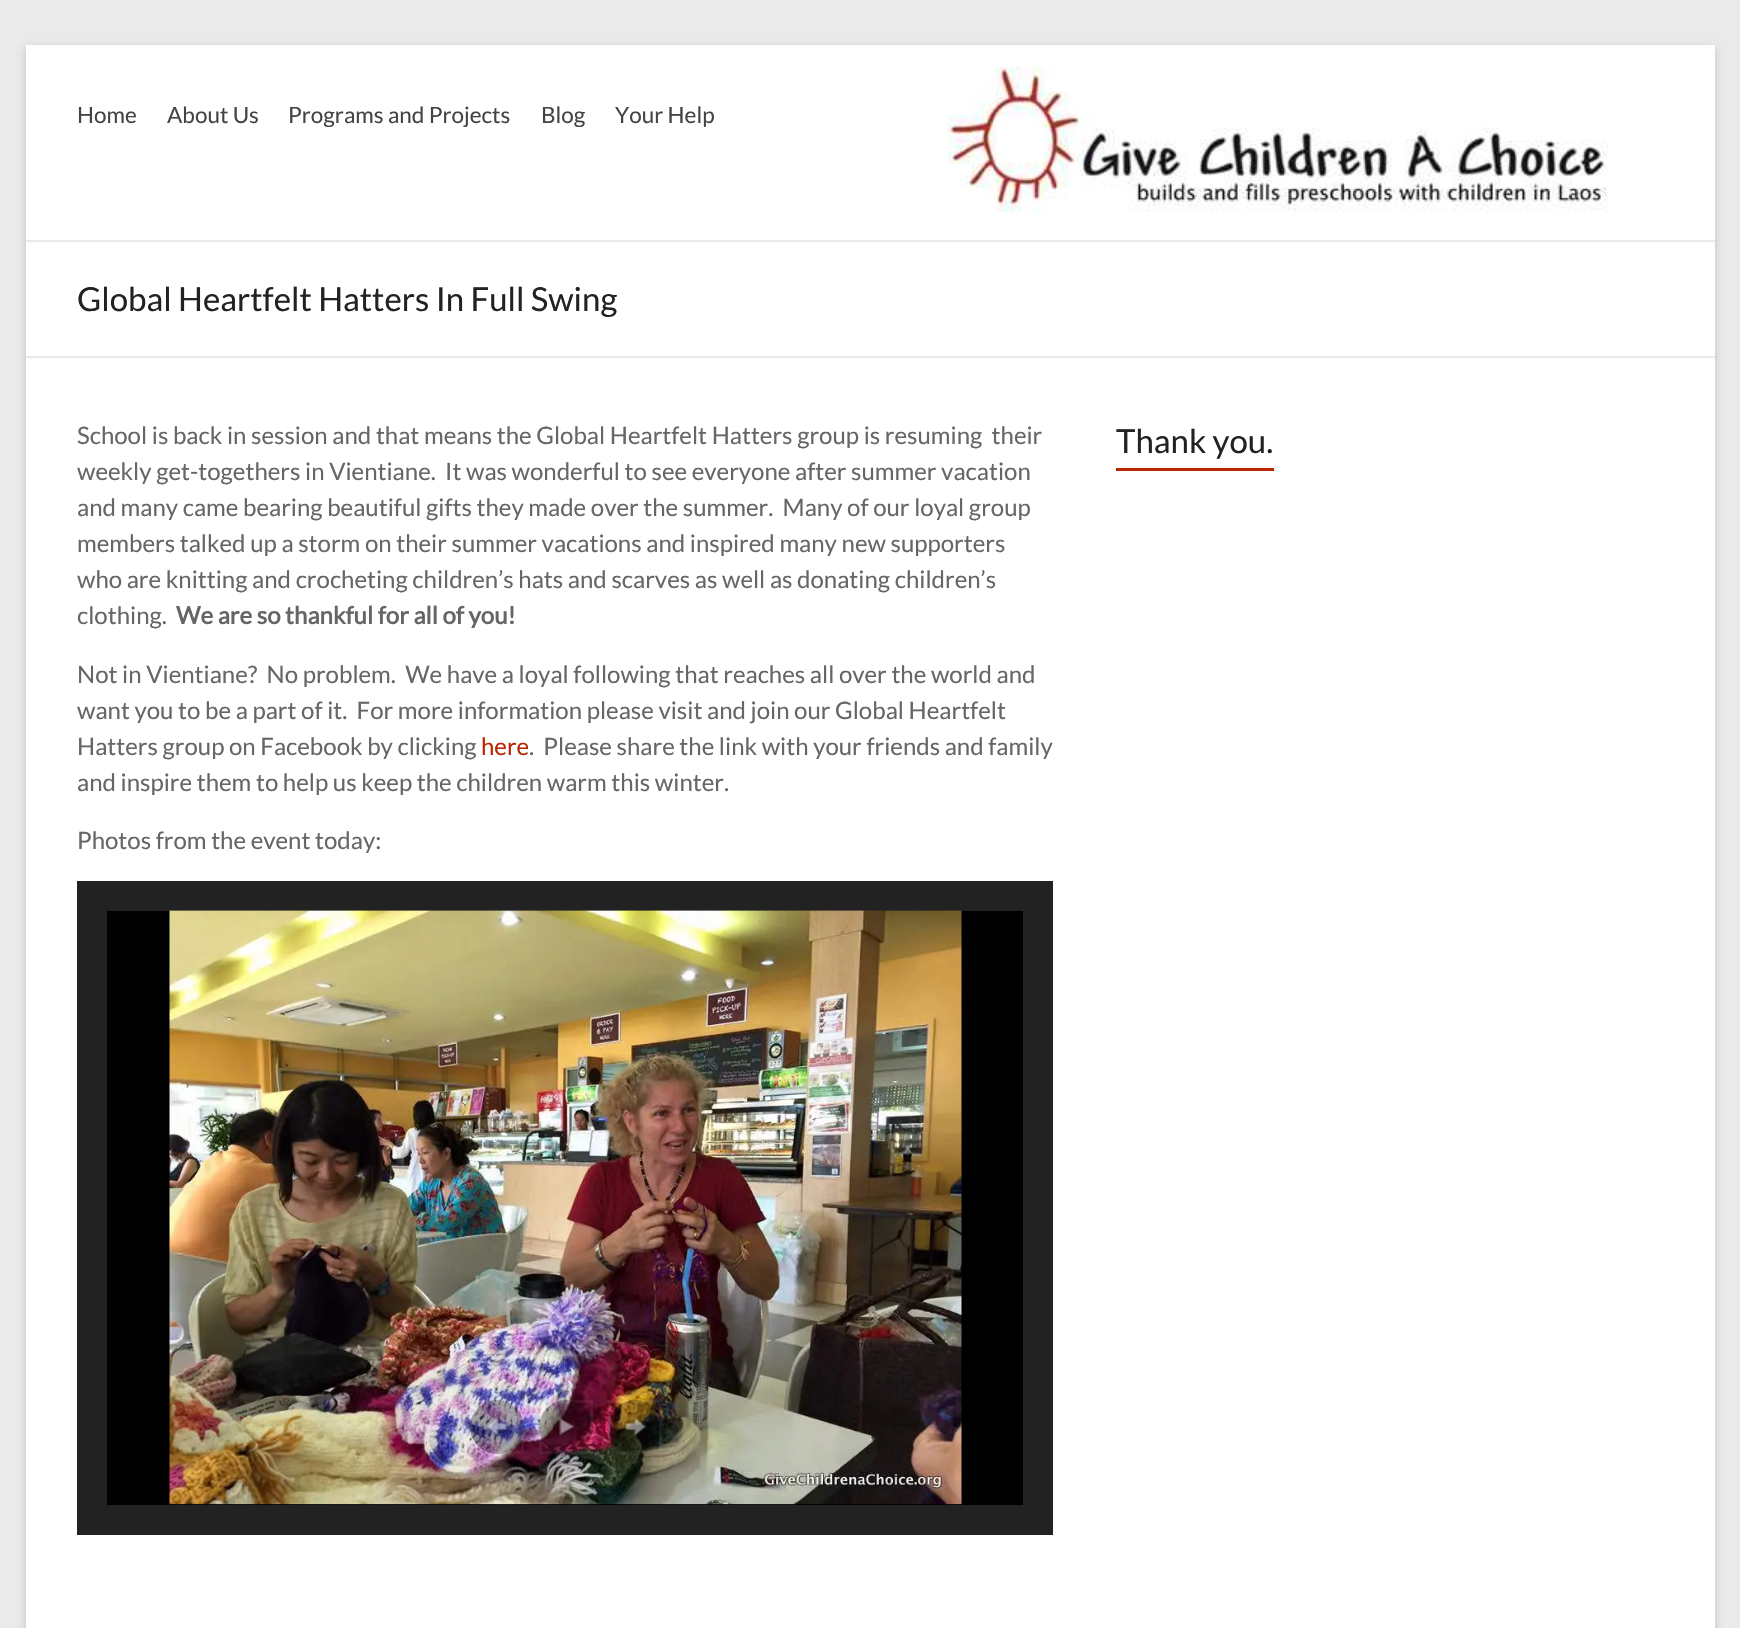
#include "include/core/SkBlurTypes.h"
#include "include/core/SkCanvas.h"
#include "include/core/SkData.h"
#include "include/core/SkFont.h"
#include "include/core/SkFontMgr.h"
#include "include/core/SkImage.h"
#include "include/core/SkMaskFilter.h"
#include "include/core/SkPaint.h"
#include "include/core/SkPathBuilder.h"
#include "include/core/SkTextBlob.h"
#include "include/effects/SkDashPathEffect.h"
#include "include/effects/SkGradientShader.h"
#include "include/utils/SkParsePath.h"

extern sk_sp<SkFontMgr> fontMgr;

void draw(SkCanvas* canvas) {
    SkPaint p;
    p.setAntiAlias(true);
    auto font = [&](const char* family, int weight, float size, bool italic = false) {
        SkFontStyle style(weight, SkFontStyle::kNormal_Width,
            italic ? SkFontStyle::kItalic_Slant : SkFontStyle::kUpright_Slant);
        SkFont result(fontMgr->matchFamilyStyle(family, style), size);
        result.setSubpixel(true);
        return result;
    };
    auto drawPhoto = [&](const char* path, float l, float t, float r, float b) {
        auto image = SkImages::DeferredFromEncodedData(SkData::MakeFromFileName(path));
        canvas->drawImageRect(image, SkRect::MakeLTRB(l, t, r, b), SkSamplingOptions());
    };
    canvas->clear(0xFFEAEAEA);
    p.setColor(0x4D646464);
    p.setMaskFilter(SkMaskFilter::MakeBlur(kNormal_SkBlurStyle, 4.5f));
    canvas->drawRect(SkRect::MakeLTRB(26, 48, 1715, 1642), p);
    p.setMaskFilter(nullptr);
    p.setColor(0xFFFFFFFF);
    canvas->drawRect(SkRect::MakeLTRB(26, 45, 1715, 1628), p);
    p.setColor(0xFFEAEAEA);
    canvas->drawRect(SkRect::MakeLTRB(26, 240, 1715, 242), p);
    auto font1 = font("Lato", 400, 22.5f);
    p.setColor(0xFF444444);
    {
        const struct { const char* s; float x, y; } items[] = {
            {"Home", 77, 123},
            {"About Us", 167, 123},
            {"Programs and Projects", 288, 123},
            {"Blog", 541, 123},
            {"Your Help", 615, 123},
        };
        for (auto [s, x, y] : items) {
            canvas->drawString(s, x, y, font1, p);
        }
    }
    drawPhoto("media/1.png", 948, 67, 1608, 213);
    p.setColor(0xFFEAEAEA);
    canvas->drawRect(SkRect::MakeLTRB(26, 356, 1715, 358), p);
    auto font2 = font("Lato", 400, 33);
    p.setColor(0xFF222222);
    canvas->drawString("Global Heartfelt Hatters In Full Swing", 77, 311, font2, p);
    auto font3 = font("Lato", 400, 24);
    p.setColor(0xFF666666);
    {
        const struct { const char* s; float x, y; } items[] = {
            {"School is back in session and that means the Global Heartfelt Hatters group is resuming  their", 77, 444},
            {"weekly get-togethers in Vientiane.  It was wonderful to see everyone after summer vacation", 77, 480},
            {"and many came bearing beautiful gifts they made over the summer.  Many of our loyal group", 77, 516},
            {"members talked up a storm on their summer vacations and inspired many new supporters", 77, 552},
            {"who are knitting and crocheting children’s hats and scarves as well as donating children’s", 77, 588},
            {"clothing.", 77, 624},
        };
        for (auto [s, x, y] : items) {
            canvas->drawString(s, x, y, font3, p);
        }
    }
    auto font4 = font("Lato", 700, 24);
    canvas->drawString("We are so thankful for all of you!", 176, 624, font4, p);
    {
        const struct { const char* s; float x, y; } items[] = {
            {"Not in Vientiane?  No problem.  We have a loyal following that reaches all over the world and", 77, 683},
            {"want you to be a part of it.  For more information please visit and join our Global Heartfelt", 77, 719},
            {"Hatters group on Facebook by clicking", 77, 755},
        };
        for (auto [s, x, y] : items) {
            canvas->drawString(s, x, y, font3, p);
        }
    }
    p.setColor(0xFFBA2601);
    canvas->drawString("here", 481, 755, font3, p);
    p.setColor(0xFF666666);
    {
        const struct { const char* s; float x, y; } items[] = {
            {".  Please share the link with your friends and family", 529, 755},
            {"and inspire them to help us keep the children warm this winter.", 77, 791},
            {"Photos from the event today:", 77, 849},
        };
        for (auto [s, x, y] : items) {
            canvas->drawString(s, x, y, font3, p);
        }
    }
    p.setStyle(SkPaint::kStroke_Style);
    p.setStrokeWidth(30);
    p.setColor(0xFF222222);
    canvas->drawRect(SkRect::MakeLTRB(92, 896, 1038, 1520), p);
    p.setStyle(SkPaint::kFill_Style);
    p.setColor(0xFF000000);
    canvas->drawRect(SkRect::MakeLTRB(107, 911, 1023, 1505), p);
    drawPhoto("media/2.png", 169, 910, 962, 1505);
    p.setColor(0x4D000000);
    canvas->drawCircle(497, 1427, 27, p);
    drawPhoto("media/3.png", 486, 1417, 510, 1437);
    p.setStyle(SkPaint::kStroke_Style);
    p.setStrokeWidth(3);
    p.setColor(0x0DFFFFFF);
    canvas->drawRect(SkRect::MakeLTRB(471.5f, 1401.5f, 522.5f, 1452.5f), p);
    p.setStyle(SkPaint::kFill_Style);
    p.setColor(0x4D000000);
    canvas->drawCircle(566, 1427, 27, p);
    drawPhoto("media/4.png", 559, 1417, 575, 1437);
    p.setStyle(SkPaint::kStroke_Style);
    p.setColor(0x0DFFFFFF);
    canvas->drawRect(SkRect::MakeLTRB(540.5f, 1401.5f, 591.5f, 1452.5f), p);
    p.setStyle(SkPaint::kFill_Style);
    p.setColor(0x4D000000);
    canvas->drawCircle(635, 1427, 27, p);
    drawPhoto("media/5.png", 625, 1417, 647, 1436);
    p.setStyle(SkPaint::kStroke_Style);
    p.setColor(0x0DFFFFFF);
    canvas->drawRect(SkRect::MakeLTRB(609.5f, 1401.5f, 660.5f, 1452.5f), p);
    p.setStyle(SkPaint::kFill_Style);
    p.setColor(0xFF222222);
    canvas->drawString("Thank you.", 1116, 453, font2, p);
    p.setColor(0xFFBA2601);
    canvas->drawRect(SkRect::MakeLTRB(1116, 468, 1274, 471), p);
}
